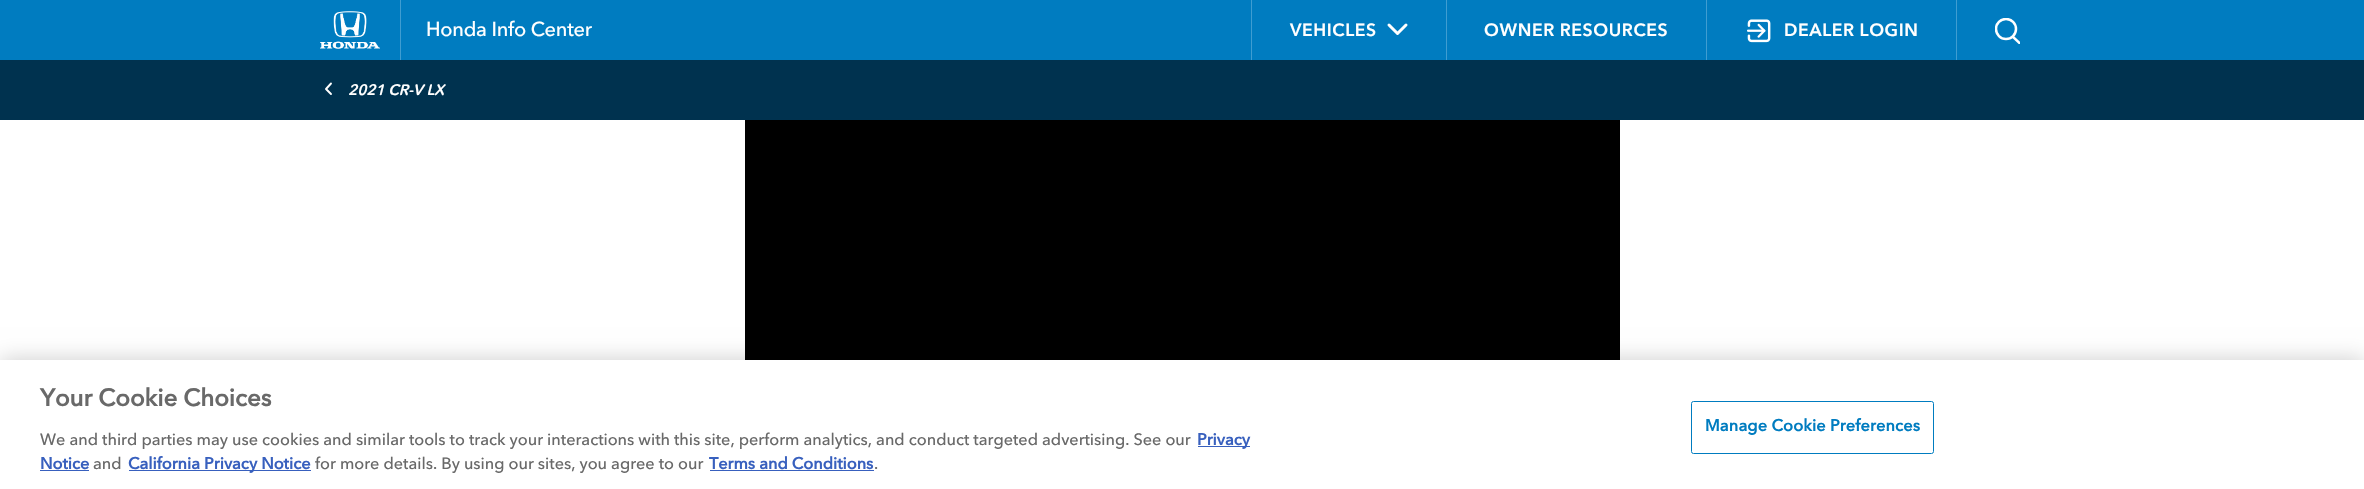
#include "include/core/SkBlurTypes.h"
#include "include/core/SkCanvas.h"
#include "include/core/SkData.h"
#include "include/core/SkFont.h"
#include "include/core/SkFontMgr.h"
#include "include/core/SkImage.h"
#include "include/core/SkMaskFilter.h"
#include "include/core/SkPaint.h"
#include "include/core/SkPathBuilder.h"
#include "include/core/SkTextBlob.h"
#include "include/effects/SkDashPathEffect.h"
#include "include/effects/SkGradientShader.h"
#include "include/utils/SkParsePath.h"

extern sk_sp<SkFontMgr> fontMgr;

void draw(SkCanvas* canvas) {
    SkPaint p;
    p.setAntiAlias(true);
    auto font = [&](const char* family, int weight, float size, bool italic = false) {
        SkFontStyle style(weight, SkFontStyle::kNormal_Width,
            italic ? SkFontStyle::kItalic_Slant : SkFontStyle::kUpright_Slant);
        SkFont result(fontMgr->matchFamilyStyle(family, style), size);
        result.setSubpixel(true);
        return result;
    };
    auto drawTracked = [&](const char* s, float x, float y, const SkFont& font, const SkPaint& ink, float letter, float word) {
        std::vector<SkGlyphID> glyphs(font.countText(s, strlen(s), SkTextEncoding::kUTF8));
        std::vector<float> xs(glyphs.size());
        font.textToGlyphs(s, strlen(s), SkTextEncoding::kUTF8, glyphs);
        font.getXPos(glyphs, xs, x);
        float extra = 0;
        for (size_t i = 0; i < glyphs.size(); i++) {
            xs[i] += extra;
            extra += letter + word * (glyphs[i] == font.unicharToGlyph(' '));
        }
        canvas->drawTextBlob(SkTextBlob::MakeFromPosHGlyphs(glyphs, xs, y, font), 0, 0, ink);
    };
    auto drawPhoto = [&](const char* path, float l, float t, float r, float b) {
        auto image = SkImages::DeferredFromEncodedData(SkData::MakeFromFileName(path));
        canvas->drawImageRect(image, SkRect::MakeLTRB(l, t, r, b), SkSamplingOptions());
    };
    canvas->clear(0xFF007CC0);
    p.setColor(0xFF3F9DD1);
    canvas->drawRect(SkRect::MakeLTRB(400, 0, 401, 60), p);
    drawPhoto("media/1.png", 320, 11, 380, 49);
    auto font1 = font("Avenir Next", 500, 20);
    p.setColor(0xFFFFFFFF);
    drawTracked("Honda Info Center", 426, 36, font1, p, -0.25f, 0);
    p.setColor(0xFF3F9DD1);
    canvas->drawRect(SkRect::MakeLTRB(1251, 0, 1252, 60), p);
    auto font2 = font("Avenir Next", 700, 17.5f);
    p.setColor(0xFFFFFFFF);
    drawTracked("VEHICLES", 1290, 36, font2, p, 0.6f, 0);
    p.setStyle(SkPaint::kStroke_Style);
    p.setStrokeWidth(3);
    p.setStrokeCap(SkPaint::kRound_Cap);
    p.setStrokeJoin(SkPaint::kRound_Join);
    canvas->drawPath(SkPathBuilder().moveTo(1406, 25).lineTo(1397.5f, 33.5f).lineTo(1389, 25).detach(), p);
    p.setStyle(SkPaint::kFill_Style);
    p.setColor(0xFF3F9DD1);
    canvas->drawRect(SkRect::MakeLTRB(1446, 0, 1447, 60), p);
    p.setColor(0xFFFFFFFF);
    drawTracked("OWNER RESOURCES", 1484, 36, font2, p, 0.6f, 0);
    p.setColor(0xFF3F9DD1);
    canvas->drawRect(SkRect::MakeLTRB(1706, 0, 1707, 60), p);
    drawPhoto("media/2.png", 1747, 19, 1771, 43);
    p.setColor(0xFFFFFFFF);
    drawTracked("DEALER LOGIN", 1784, 36, font2, p, 0.6f, 0);
    p.setColor(0xFF3F9DD1);
    canvas->drawRect(SkRect::MakeLTRB(1956, 0, 1957, 60), p);
    canvas->save();
    canvas->clipRect(SkRect::MakeLTRB(1995, 18, 2020, 44));
    p.setStyle(SkPaint::kStroke_Style);
    p.setStrokeWidth(2.5f);
    p.setStrokeCap(SkPaint::kButt_Cap);
    p.setStrokeJoin(SkPaint::kMiter_Join);
    p.setColor(0xFFFFFFFF);
    canvas->drawCircle(2006, 29, 10, p);
    p.setStrokeCap(SkPaint::kSquare_Cap);
    canvas->drawPath(SkPathBuilder().moveTo(2013, 37).lineTo(2020, 43.5f).detach(), p);
    canvas->restore();
    p.setStyle(SkPaint::kFill_Style);
    canvas->drawRect(SkRect::MakeLTRB(0, 120, 2364, 360), p);
    p.setColor(0xFF00324F);
    canvas->drawRect(SkRect::MakeLTRB(0, 60, 2364, 120), p);
    p.setStyle(SkPaint::kStroke_Style);
    p.setStrokeWidth(1.9f);
    p.setStrokeCap(SkPaint::kRound_Cap);
    p.setStrokeJoin(SkPaint::kRound_Join);
    p.setColor(0xFFFFFFFF);
    canvas->drawPath(SkPathBuilder().moveTo(331, 94).lineTo(326, 89).lineTo(331, 83.5f).detach(), p);
    auto font3 = font("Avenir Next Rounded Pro", 600, 15, true);
    p.setStyle(SkPaint::kFill_Style);
    canvas->drawString("2021 CR-V LX", 348, 95, font3, p);
    p.setColor(0xFF000000);
    canvas->drawRect(SkRect::MakeLTRB(745, 120, 1620, 360), p);
    p.setColor(0x33000000);
    p.setMaskFilter(SkMaskFilter::MakeBlur(kNormal_SkBlurStyle, 11));
    canvas->drawRect(SkRect::MakeLTRB(0, 360, 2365, 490), p);
    p.setMaskFilter(nullptr);
    p.setColor(0xFFFFFFFF);
    canvas->drawRect(SkRect::MakeLTRB(0, 360, 2364, 489), p);
    auto font4 = font("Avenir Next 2", 700, 24);
    p.setColor(0xFF696969);
    canvas->drawString("Your Cookie Choices", 40, 406, font4, p);
    auto font5 = font("Avenir Next", 500, 16.25f);
    canvas->drawString("We and third parties may use cookies and similar tools to track your interactions with this site, perform analytics, and conduct targeted advertising. See our", 40, 445, font5, p);
    p.setColor(0xFF3860BE);
    canvas->drawRect(SkRect::MakeLTRB(1198, 446, 1250, 447), p);
    auto font6 = font("Avenir Next 2", 700, 16.25f);
    canvas->drawString("Privacy", 1197, 445, font6, p);
    canvas->drawString("Notice", 40, 469, font6, p);
    canvas->drawRect(SkRect::MakeLTRB(40, 470, 89, 471), p);
    p.setColor(0xFF696969);
    canvas->drawString("and", 93, 469, font5, p);
    p.setColor(0xFF3860BE);
    canvas->drawRect(SkRect::MakeLTRB(129, 470, 311, 471), p);
    canvas->drawString("California Privacy Notice", 128, 469, font6, p);
    p.setColor(0xFF696969);
    canvas->drawString("for more details. By using our sites, you agree to our", 315, 469, font5, p);
    p.setColor(0xFF3860BE);
    canvas->drawString("Terms and Conditions", 709, 469, font6, p);
    canvas->drawRect(SkRect::MakeLTRB(710, 470, 874, 471), p);
    p.setColor(0xFF696969);
    canvas->drawString(".", 874, 469, font5, p);
    p.setStyle(SkPaint::kStroke_Style);
    p.setStrokeWidth(1);
    p.setStrokeCap(SkPaint::kButt_Cap);
    p.setStrokeJoin(SkPaint::kMiter_Join);
    p.setColor(0xFF007CC0);
    canvas->drawRoundRect(SkRect::MakeLTRB(1691.5f, 401.5f, 1933.5f, 453.5f), 2, 2, p);
    p.setStyle(SkPaint::kFill_Style);
    drawTracked("Manage Cookie Preferences", 1705, 431, font6, p, 0.15f, 0);
}
